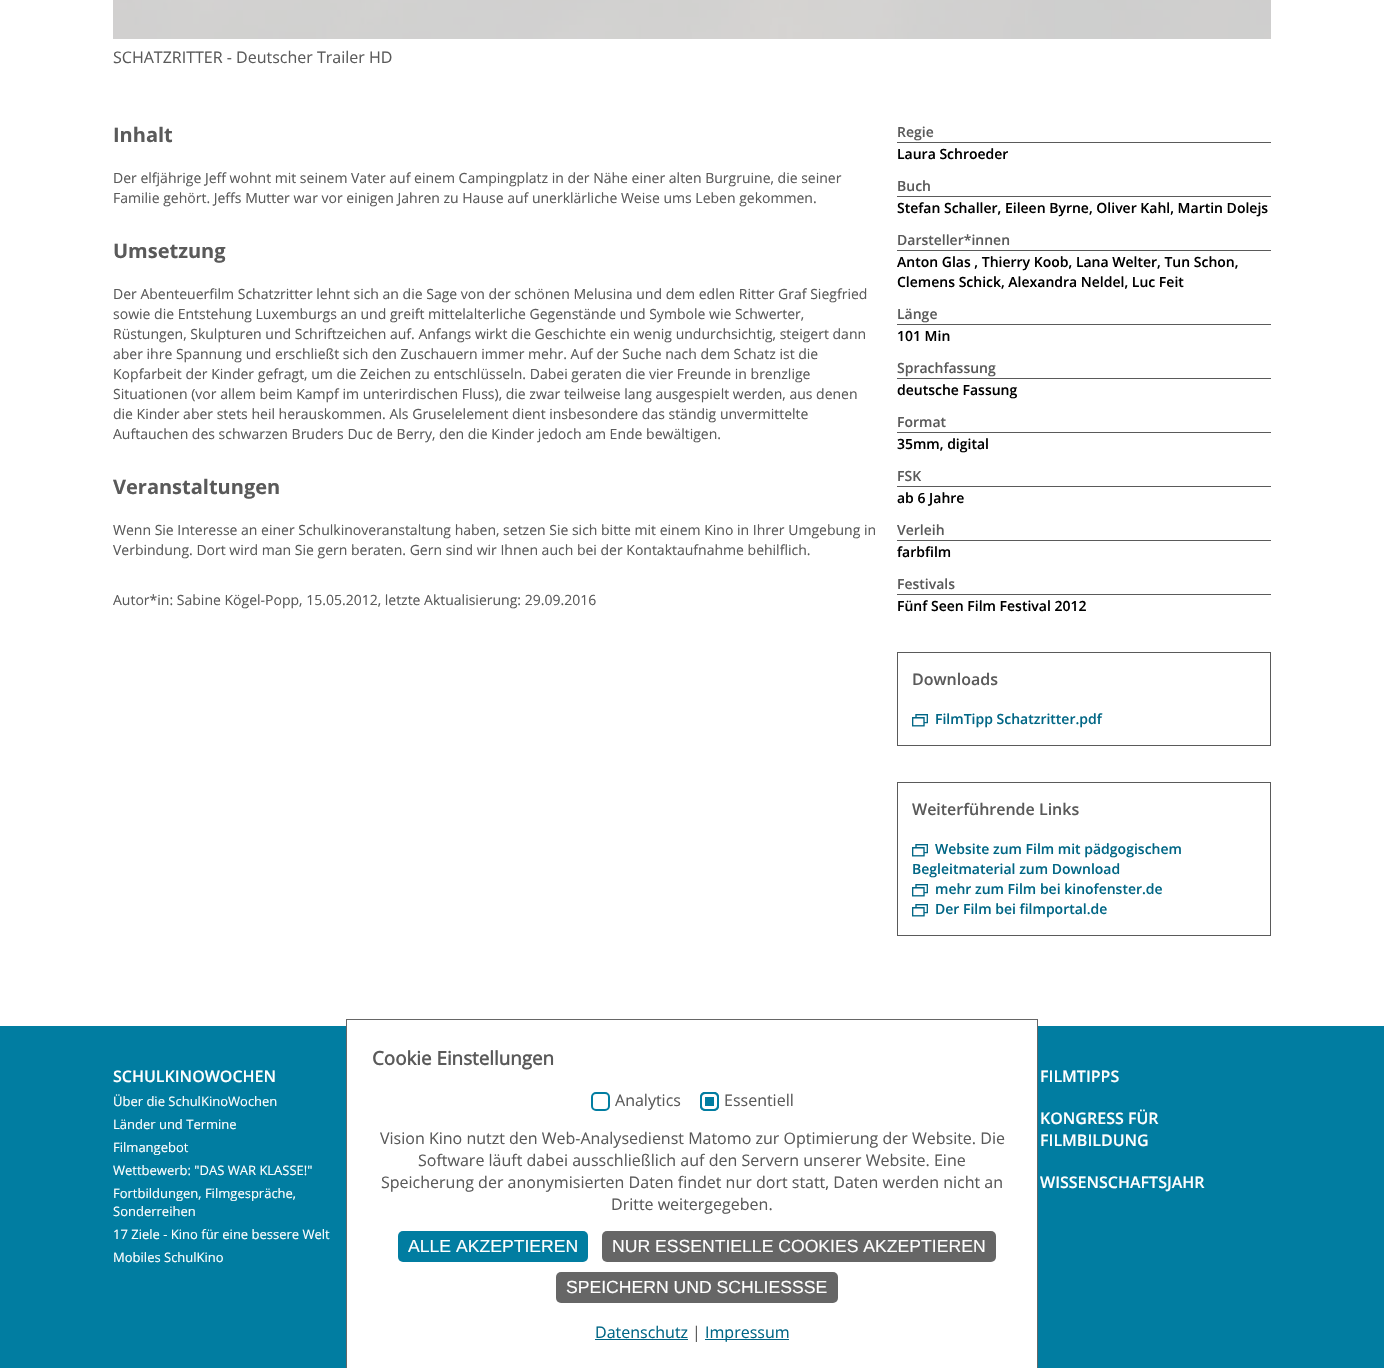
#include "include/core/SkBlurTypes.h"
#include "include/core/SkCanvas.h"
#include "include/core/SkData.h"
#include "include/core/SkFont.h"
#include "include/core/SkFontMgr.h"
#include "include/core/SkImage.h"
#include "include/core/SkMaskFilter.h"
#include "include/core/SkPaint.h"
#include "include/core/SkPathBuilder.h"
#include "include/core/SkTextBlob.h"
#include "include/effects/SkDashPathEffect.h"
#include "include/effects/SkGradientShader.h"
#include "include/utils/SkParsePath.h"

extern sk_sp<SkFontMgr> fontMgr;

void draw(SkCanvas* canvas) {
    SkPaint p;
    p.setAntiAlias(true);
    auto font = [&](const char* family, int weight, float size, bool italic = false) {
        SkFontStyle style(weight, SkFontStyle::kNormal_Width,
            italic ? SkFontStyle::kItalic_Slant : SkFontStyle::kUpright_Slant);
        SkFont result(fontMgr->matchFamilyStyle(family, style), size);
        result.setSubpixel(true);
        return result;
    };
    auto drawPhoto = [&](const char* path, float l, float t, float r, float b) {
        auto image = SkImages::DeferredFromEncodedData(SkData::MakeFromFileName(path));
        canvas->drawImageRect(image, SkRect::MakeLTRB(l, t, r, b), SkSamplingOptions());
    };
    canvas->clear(0xFFFFFFFF);
    drawPhoto("media/1.png", 113, 0, 1271, 39);
    auto font1 = font("Open Sans", 400, 16);
    p.setColor(0xFF5A5A5A);
    canvas->drawString("SCHATZRITTER - Deutscher Trailer HD", 113, 63, font1, p);
    auto font2 = font("Open Sans", 700, 20);
    canvas->drawString("Inhalt", 113, 142, font2, p);
    auto font3 = font("Open Sans", 400, 14);
    canvas->drawString("Der elfjährige Jeff wohnt mit seinem Vater auf einem Campingplatz in der Nähe einer alten Burgruine, die seiner", 113, 183, font3, p);
    canvas->drawString("Familie gehört. Jeffs Mutter war vor einigen Jahren zu Hause auf unerklärliche Weise ums Leben gekommen.", 113, 203, font3, p);
    canvas->drawString("Umsetzung", 113, 258, font2, p);
    {
        const struct { const char* s; float x, y; } items[] = {
            {"Der Abenteuerfilm Schatzritter lehnt sich an die Sage von der schönen Melusina und dem edlen Ritter Graf Siegfried", 113, 299},
            {"sowie die Entstehung Luxemburgs an und greift mittelalterliche Gegenstände und Symbole wie Schwerter,", 113, 319},
            {"Rüstungen, Skulpturen und Schriftzeichen auf. Anfangs wirkt die Geschichte ein wenig undurchsichtig, steigert dann", 113, 339},
            {"aber ihre Spannung und erschließt sich den Zuschauern immer mehr. Auf der Suche nach dem Schatz ist die", 113, 359},
            {"Kopfarbeit der Kinder gefragt, um die Zeichen zu entschlüsseln. Dabei geraten die vier Freunde in brenzlige", 113, 379},
            {"Situationen (vor allem beim Kampf im unterirdischen Fluss), die zwar teilweise lang ausgespielt werden, aus denen", 113, 399},
            {"die Kinder aber stets heil herauskommen. Als Gruselelement dient insbesondere das ständig unvermittelte", 113, 419},
            {"Auftauchen des schwarzen Bruders Duc de Berry, den die Kinder jedoch am Ende bewältigen.", 113, 439},
        };
        for (auto [s, x, y] : items) {
            canvas->drawString(s, x, y, font3, p);
        }
    }
    canvas->drawString("Veranstaltungen", 113, 494, font2, p);
    {
        const struct { const char* s; float x, y; } items[] = {
            {"Wenn Sie Interesse an einer Schulkinoveranstaltung haben, setzen Sie sich bitte mit einem Kino in Ihrer Umgebung in", 113, 535},
            {"Verbindung. Dort wird man Sie gern beraten. Gern sind wir Ihnen auch bei der Kontaktaufnahme behilflich.", 113, 555},
            {"Autor*in: Sabine Kögel-Popp, 15.05.2012, letzte Aktualisierung: 29.09.2016", 113, 605},
        };
        for (auto [s, x, y] : items) {
            canvas->drawString(s, x, y, font3, p);
        }
    }
    auto font4 = font("Open Sans", 600, 14);
    canvas->drawString("Regie", 897, 137, font4, p);
    canvas->drawRect(SkRect::MakeLTRB(897, 142, 1271, 143), p);
    p.setColor(0xFF000000);
    canvas->drawString("Laura Schroeder", 897, 159, font4, p);
    p.setColor(0xFF5A5A5A);
    canvas->drawString("Buch", 897, 191, font4, p);
    canvas->drawRect(SkRect::MakeLTRB(897, 196, 1271, 197), p);
    p.setColor(0xFF000000);
    canvas->drawString("Stefan Schaller, Eileen Byrne, Oliver Kahl, Martin Dolejs", 897, 213, font4, p);
    p.setColor(0xFF5A5A5A);
    canvas->drawString("Darsteller*innen", 897, 245, font4, p);
    canvas->drawRect(SkRect::MakeLTRB(897, 250, 1271, 251), p);
    p.setColor(0xFF000000);
    canvas->drawString("Anton Glas , Thierry Koob, Lana Welter, Tun Schon,", 897, 267, font4, p);
    canvas->drawString("Clemens Schick, Alexandra Neldel, Luc Feit", 897, 287, font4, p);
    p.setColor(0xFF5A5A5A);
    canvas->drawString("Länge", 897, 319, font4, p);
    canvas->drawRect(SkRect::MakeLTRB(897, 324, 1271, 325), p);
    p.setColor(0xFF000000);
    canvas->drawString("101 Min", 897, 341, font4, p);
    p.setColor(0xFF5A5A5A);
    canvas->drawString("Sprachfassung", 897, 373, font4, p);
    canvas->drawRect(SkRect::MakeLTRB(897, 378, 1271, 379), p);
    p.setColor(0xFF000000);
    canvas->drawString("deutsche Fassung", 897, 395, font4, p);
    p.setColor(0xFF5A5A5A);
    canvas->drawString("Format", 897, 427, font4, p);
    canvas->drawRect(SkRect::MakeLTRB(897, 432, 1271, 433), p);
    p.setColor(0xFF000000);
    canvas->drawString("35mm, digital", 897, 449, font4, p);
    p.setColor(0xFF5A5A5A);
    canvas->drawString("FSK", 897, 481, font4, p);
    canvas->drawRect(SkRect::MakeLTRB(897, 486, 1271, 487), p);
    p.setColor(0xFF000000);
    canvas->drawString("ab 6 Jahre", 897, 503, font4, p);
    p.setColor(0xFF5A5A5A);
    canvas->drawString("Verleih", 897, 535, font4, p);
    canvas->drawRect(SkRect::MakeLTRB(897, 540, 1271, 541), p);
    p.setColor(0xFF000000);
    canvas->drawString("farbfilm", 897, 557, font4, p);
    p.setColor(0xFF5A5A5A);
    canvas->drawString("Festivals", 897, 589, font4, p);
    canvas->drawRect(SkRect::MakeLTRB(897, 594, 1271, 595), p);
    p.setColor(0xFF000000);
    canvas->drawString("Fünf Seen Film Festival 2012", 897, 611, font4, p);
    p.setStyle(SkPaint::kStroke_Style);
    p.setStrokeWidth(1);
    p.setColor(0xFF5A5A5A);
    canvas->drawRect(SkRect::MakeLTRB(897.5f, 652.5f, 1270.5f, 745.5f), p);
    auto font5 = font("Open Sans", 600, 16);
    p.setStyle(SkPaint::kFill_Style);
    canvas->drawString("Downloads", 912, 685, font5, p);
    drawPhoto("media/2.png", 912, 714, 928, 727);
    p.setColor(0xFF006685);
    canvas->drawString("FilmTipp Schatzritter.pdf", 935, 724, font4, p);
    p.setStyle(SkPaint::kStroke_Style);
    p.setColor(0xFF5A5A5A);
    canvas->drawRect(SkRect::MakeLTRB(897.5f, 782.5f, 1270.5f, 935.5f), p);
    p.setStyle(SkPaint::kFill_Style);
    canvas->drawString("Weiterführende Links", 912, 815, font5, p);
    drawPhoto("media/2.png", 912, 844, 928, 857);
    p.setColor(0xFF006685);
    canvas->drawString("Website zum Film mit pädgogischem", 935, 854, font4, p);
    canvas->drawString("Begleitmaterial zum Download", 912, 874, font4, p);
    drawPhoto("media/2.png", 912, 884, 928, 897);
    canvas->drawString("mehr zum Film bei kinofenster.de", 935, 894, font4, p);
    drawPhoto("media/2.png", 912, 904, 928, 917);
    canvas->drawString("Der Film bei filmportal.de", 935, 914, font4, p);
    {
        const struct { float l, t, r, b; SkColor color; } items[] = {
            {0, 1026, 1384, 1368, 0xFF017DA1},
            {347, 1026, 1037, 1368, 0xFFFFFFFF},
            {346, 1019, 1038, 1020, 0xFF666666},
            {1037, 1019, 1038, 1368, 0xFF666666},
            {346, 1019, 347, 1368, 0xFF666666},
        };
        for (auto [l, t, r, b, color] : items) {
            p.setColor(color);
            canvas->drawRect(SkRect::MakeLTRB(l, t, r, b), p);
        }
    }
    auto font6 = font("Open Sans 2", 700, 18.75f);
    p.setColor(0xFF5A5A5A);
    canvas->drawString("Cookie Einstellungen", 372, 1065, font6, p);
    p.setStyle(SkPaint::kStroke_Style);
    p.setStrokeWidth(2);
    p.setColor(0xFF017DA1);
    canvas->drawRoundRect(SkRect::MakeLTRB(592, 1093, 609, 1110), 4, 4, p);
    p.setStyle(SkPaint::kFill_Style);
    p.setColor(0xFF5A5A5A);
    canvas->drawString("Analytics", 615, 1106, font1, p);
    p.setColor(0xFF017DA1);
    canvas->drawRoundRect(SkRect::MakeLTRB(700, 1092, 719, 1111), 5, 5, p);
    p.setStyle(SkPaint::kStroke_Style);
    p.setStrokeWidth(3);
    p.setColor(0xFFFFFFFF);
    canvas->drawRoundRect(SkRect::MakeLTRB(703.5f, 1095.5f, 715.5f, 1107.5f), 1.5f, 1.5f, p);
    p.setStrokeWidth(2);
    p.setColor(0xFF017DA1);
    canvas->drawRoundRect(SkRect::MakeLTRB(701, 1093, 718, 1110), 4, 4, p);
    p.setStyle(SkPaint::kFill_Style);
    p.setColor(0xFF5A5A5A);
    {
        const struct { const char* s; float x, y; } items[] = {
            {"Essentiell", 724, 1106},
            {"Vision Kino nutzt den Web-Analysedienst Matomo zur Optimierung der Website. Die", 380, 1144},
            {"Software läuft dabei ausschließlich auf den Servern unserer Website. Eine", 418, 1166},
            {"Speicherung der anonymisierten Daten findet nur dort statt, Daten werden nicht an", 381, 1188},
            {"Dritte weitergegeben.", 611, 1210},
        };
        for (auto [s, x, y] : items) {
            canvas->drawString(s, x, y, font1, p);
        }
    }
    p.setColor(0xFF017DA1);
    canvas->drawRoundRect(SkRect::MakeLTRB(398, 1231, 588, 1262), 5, 5, p);
    auto font7 = font("Liberation Sans", 400, 17.6f);
    p.setColor(0xFFFFFFFF);
    canvas->drawString("ALLE AKZEPTIEREN", 408, 1252, font7, p);
    p.setColor(0xFF666666);
    canvas->drawRoundRect(SkRect::MakeLTRB(602, 1231, 996, 1262), 5, 5, p);
    p.setColor(0xFFFFFFFF);
    canvas->drawString("NUR ESSENTIELLE COOKIES AKZEPTIEREN", 612, 1252, font7, p);
    p.setColor(0xFF666666);
    canvas->drawRoundRect(SkRect::MakeLTRB(556, 1272, 838, 1303), 5, 5, p);
    p.setColor(0xFFFFFFFF);
    canvas->drawString("SPEICHERN UND SCHLIESSSE", 566, 1293, font7, p);
    p.setColor(0xFF006685);
    canvas->drawString("Datenschutz", 595, 1338, font1, p);
    canvas->drawRect(SkRect::MakeLTRB(595, 1339, 688, 1340), p);
    p.setColor(0xFF5A5A5A);
    canvas->drawString("|", 692, 1338, font1, p);
    p.setColor(0xFF006685);
    canvas->drawRect(SkRect::MakeLTRB(705, 1339, 789, 1340), p);
    canvas->drawString("Impressum", 705, 1338, font1, p);
    p.setColor(0xFFFFFFFF);
    canvas->drawString("SCHULKINOWOCHEN", 113, 1082, font5, p);
    auto font8 = font("Open Sans", 400, 13);
    {
        const struct { const char* s; float x, y; } items[] = {
            {"Über die SchulKinoWochen", 113, 1106},
            {"Länder und Termine", 113, 1129},
            {"Filmangebot", 113, 1152},
            {"Wettbewerb: \"DAS WAR KLASSE!\"", 113, 1175},
            {"Fortbildungen, Filmgespräche,", 113, 1198},
            {"Sonderreihen", 113, 1216},
            {"17 Ziele - Kino für eine bessere Welt", 113, 1239},
            {"Mobiles SchulKino", 113, 1262},
        };
        for (auto [s, x, y] : items) {
            canvas->drawString(s, x, y, font8, p);
        }
    }
    {
        const struct { const char* s; float x, y; } items[] = {
            {"FILMTIPPS", 1040, 1082},
            {"KONGRESS FÜR", 1040, 1124},
            {"FILMBILDUNG", 1040, 1146},
            {"WISSENSCHAFTSJAHR", 1040, 1188},
        };
        for (auto [s, x, y] : items) {
            canvas->drawString(s, x, y, font5, p);
        }
    }
}
